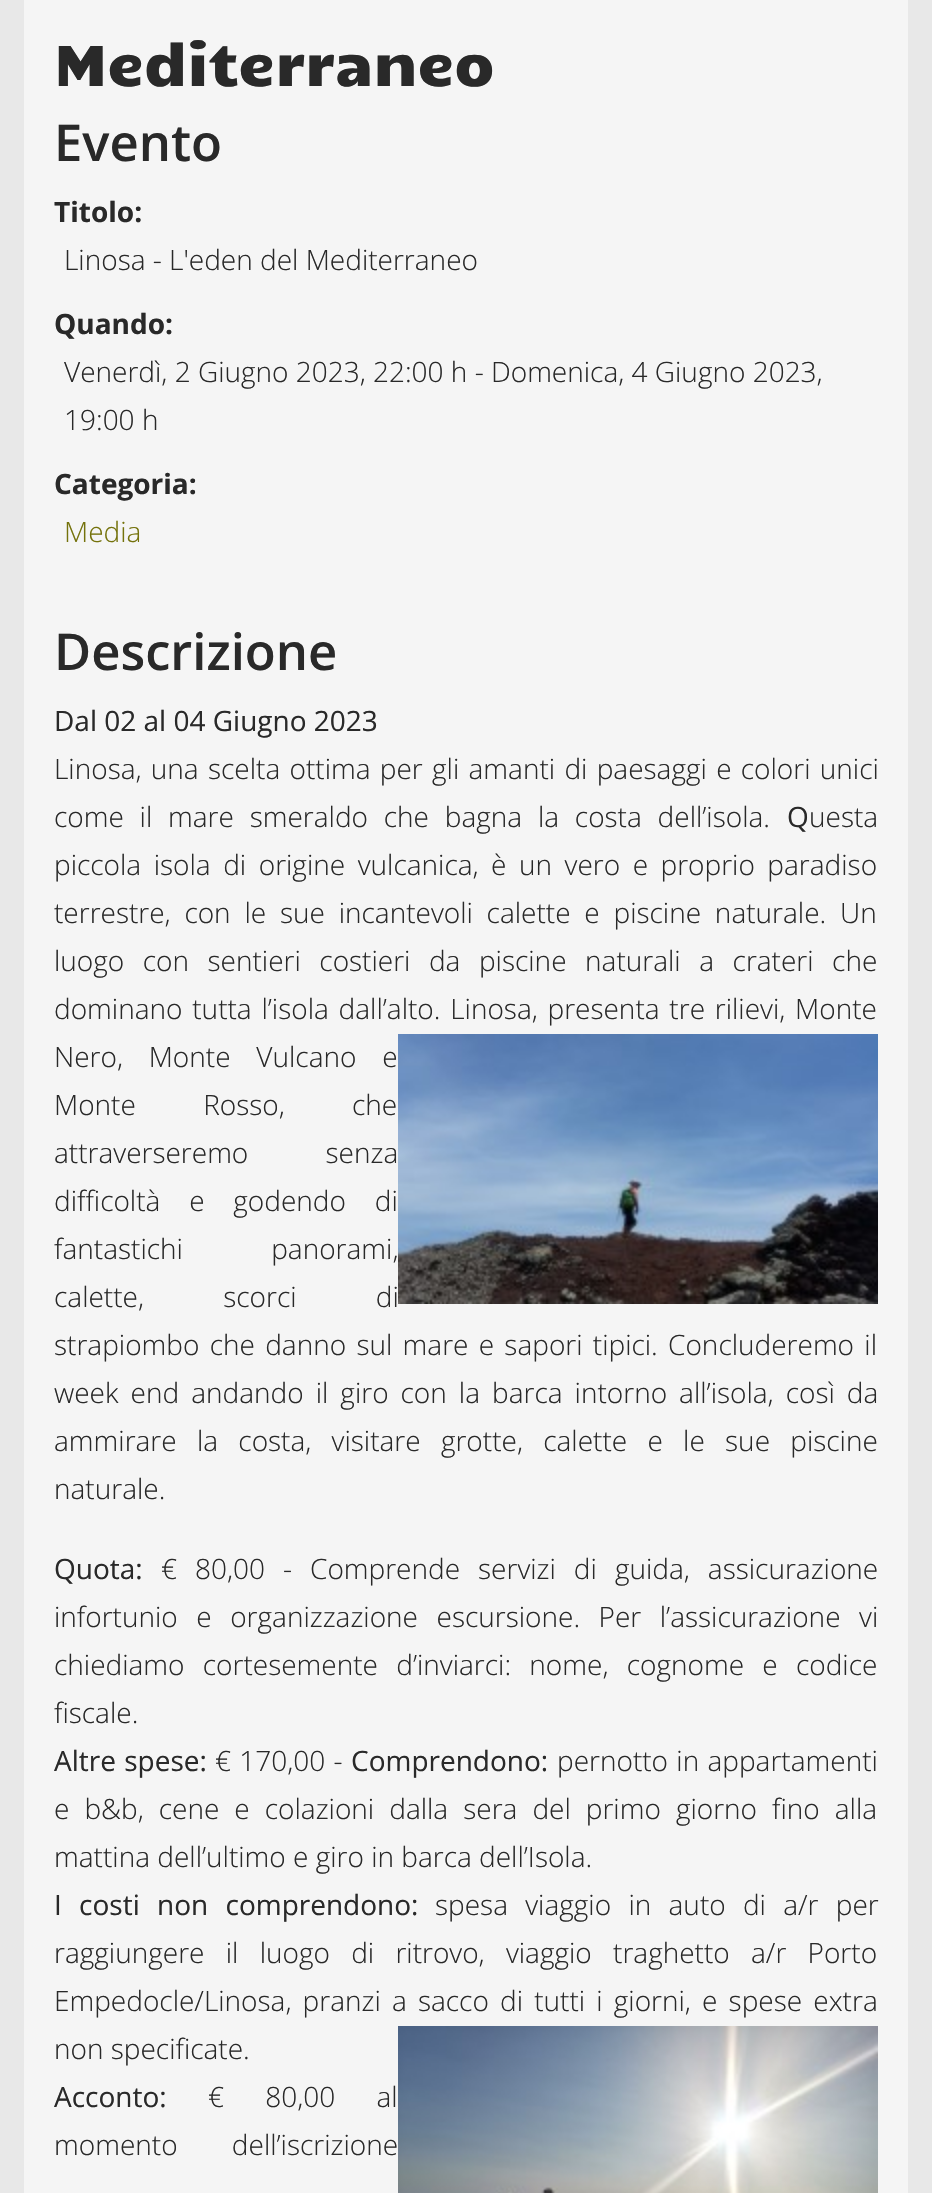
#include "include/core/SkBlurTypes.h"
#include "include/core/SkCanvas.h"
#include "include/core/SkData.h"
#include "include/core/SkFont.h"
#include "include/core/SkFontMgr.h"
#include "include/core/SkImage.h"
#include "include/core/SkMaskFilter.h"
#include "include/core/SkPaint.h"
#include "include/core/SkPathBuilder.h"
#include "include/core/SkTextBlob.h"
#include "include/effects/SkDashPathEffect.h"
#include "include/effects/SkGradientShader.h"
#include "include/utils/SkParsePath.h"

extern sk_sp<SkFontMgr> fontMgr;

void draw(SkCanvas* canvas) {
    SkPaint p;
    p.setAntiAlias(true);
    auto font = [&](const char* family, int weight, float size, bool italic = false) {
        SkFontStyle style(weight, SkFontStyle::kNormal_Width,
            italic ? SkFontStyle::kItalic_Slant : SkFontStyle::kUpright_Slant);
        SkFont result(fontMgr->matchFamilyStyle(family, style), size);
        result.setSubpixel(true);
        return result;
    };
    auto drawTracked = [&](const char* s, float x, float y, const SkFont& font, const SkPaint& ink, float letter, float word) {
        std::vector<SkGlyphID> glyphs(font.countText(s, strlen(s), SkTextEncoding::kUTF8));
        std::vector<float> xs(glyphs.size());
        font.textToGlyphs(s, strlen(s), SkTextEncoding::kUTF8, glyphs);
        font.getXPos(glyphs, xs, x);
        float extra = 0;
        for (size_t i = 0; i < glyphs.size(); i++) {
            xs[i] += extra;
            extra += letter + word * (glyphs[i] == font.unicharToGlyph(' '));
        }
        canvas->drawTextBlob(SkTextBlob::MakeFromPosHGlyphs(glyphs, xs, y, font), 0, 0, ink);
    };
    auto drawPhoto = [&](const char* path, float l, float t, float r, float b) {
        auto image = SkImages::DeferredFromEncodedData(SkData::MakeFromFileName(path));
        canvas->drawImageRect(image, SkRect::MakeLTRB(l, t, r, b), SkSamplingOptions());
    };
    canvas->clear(0xFFE8E8E8);
    p.setColor(0xFFF5F5F5);
    canvas->drawRect(SkRect::MakeLTRB(24, 0, 908, 2193), p);
    auto font1 = font("Candal", 400, 58);
    p.setColor(0xFF292929);
    canvas->drawString("Mediterraneo", 54, 86, font1, p);
    auto font2 = font("Open Sans", 600, 50.75f);
    canvas->drawString("Evento", 54, 161, font2, p);
    auto font3 = font("Open Sans", 700, 28);
    canvas->drawString("Titolo:", 54, 222, font3, p);
    auto font4 = font("Open Sans", 300, 28);
    canvas->drawString("Linosa - L'eden del Mediterraneo", 64, 270, font4, p);
    canvas->drawString("Quando:", 54, 334, font3, p);
    canvas->drawString("Venerdì, 2 Giugno 2023, 22:00 h - Domenica, 4 Giugno 2023,", 64, 382, font4, p);
    canvas->drawString("19:00 h", 64, 430, font4, p);
    canvas->drawString("Categoria:", 54, 494, font3, p);
    p.setColor(0xFF74720B);
    canvas->drawString("Media", 64, 542, font4, p);
    p.setColor(0xFF292929);
    canvas->drawString("Descrizione", 54, 670, font2, p);
    auto font5 = font("Open Sans", 400, 28);
    canvas->drawString("Dal 02 al 04 Giugno 2023", 54, 731, font5, p);
    drawTracked("Linosa, una scelta ottima per gli amanti di paesaggi e colori unici", 54, 779, font4, p, 0, 2);
    drawTracked("come il mare smeraldo che bagna la costa dell’isola.", 54, 827, font4, p, 0, 8.5f);
    canvas->drawString("Q", 787, 827, font5, p);
    canvas->drawString("uesta", 809, 827, font4, p);
    drawTracked("piccola isola di origine vulcanica, è un vero e proprio paradiso", 54, 875, font4, p, 0, 5.25f);
    drawTracked("terrestre, con le sue incantevoli calette e piscine naturale. Un", 54, 923, font4, p, 0, 6.5f);
    drawTracked("luogo con sentieri costieri da piscine naturali a crateri che", 54, 971, font4, p, 0, 11.25f);
    drawTracked("dominano tutta l’isola dall’alto. Linosa, presenta tre rilievi, Monte", 54, 1019, font4, p, 0, 2.5f);
    drawTracked("Nero, Monte Vulcano e", 54, 1067, font4, p, 0, 18.5f);
    drawPhoto("media/1.png", 398, 1034, 878, 1304);
    drawTracked("Monte Rosso, che", 54, 1115, font4, p, 0, 60);
    drawTracked("attraverseremo senza", 54, 1163, font4, p, 0, 70);
    drawTracked("difficoltà e godendo di", 54, 1211, font4, p, 0, 21.5f);
    drawTracked("fantastichi panorami,", 54, 1259, font4, p, 0, 81);
    drawTracked("calette, scorci di", 54, 1307, font4, p, 0, 72);
    drawTracked("strapiombo che danno sul mare e sapori tipici. Concluderemo il", 54, 1355, font4, p, 0, 3);
    drawTracked("week end andando il giro con la barca intorno all’isola, così da", 54, 1403, font4, p, 0, 4.75f);
    drawTracked("ammirare la costa, visitare grotte, calette e le sue piscine", 54, 1451, font4, p, 0, 13);
    canvas->drawString("naturale.", 54, 1499, font4, p);
    canvas->drawString("Quota:", 54, 1579, font5, p);
    drawTracked("€ 80,00 - Comprende servizi di guida, assicurazione", 161, 1579, font4, p, 0, 10.75f);
    drawTracked("infortunio e organizzazione escursione. Per l’assicurazione vi", 54, 1627, font4, p, 0, 11.25f);
    drawTracked("chiediamo cortesemente d’inviarci: nome, cognome e codice", 54, 1675, font4, p, 0, 11);
    canvas->drawString("fiscale.", 54, 1723, font4, p);
    drawTracked("Altre spese:", 54, 1771, font5, p, 0, 1);
    drawTracked("€ 170,00 -", 215, 1771, font4, p, 0, 1);
    canvas->drawString("Comprendono:", 351, 1771, font5, p);
    drawTracked("pernotto in appartamenti", 557, 1771, font4, p, 0, 1);
    drawTracked("e b&b, cene e colazioni dalla sera del primo giorno fino alla", 54, 1819, font4, p, 0, 7.75f);
    canvas->drawString("mattina dell’ultimo e giro in barca dell’Isola.", 54, 1867, font4, p);
    drawTracked("I costi non comprendono:", 54, 1915, font5, p, 0, 10);
    drawTracked("spesa viaggio in auto di a/r per", 435, 1915, font4, p, 0, 10);
    drawTracked("raggiungere il luogo di ritrovo, viaggio traghetto a/r Porto", 54, 1963, font4, p, 0, 14);
    drawTracked("Empedocle/Linosa, pranzi a sacco di tutti i giorni, e spese extra", 54, 2011, font4, p, 0, 3.9f);
    canvas->drawString("non specificate.", 54, 2059, font4, p);
    drawPhoto("media/2.png", 398, 2026, 878, 2193);
    canvas->drawString("Acconto:", 54, 2107, font5, p);
    drawTracked("€ 80,00 al", 208, 2107, font4, p, 0, 34);
    drawTracked("momento dell’iscrizione", 54, 2155, font4, p, 0, 47);
}
